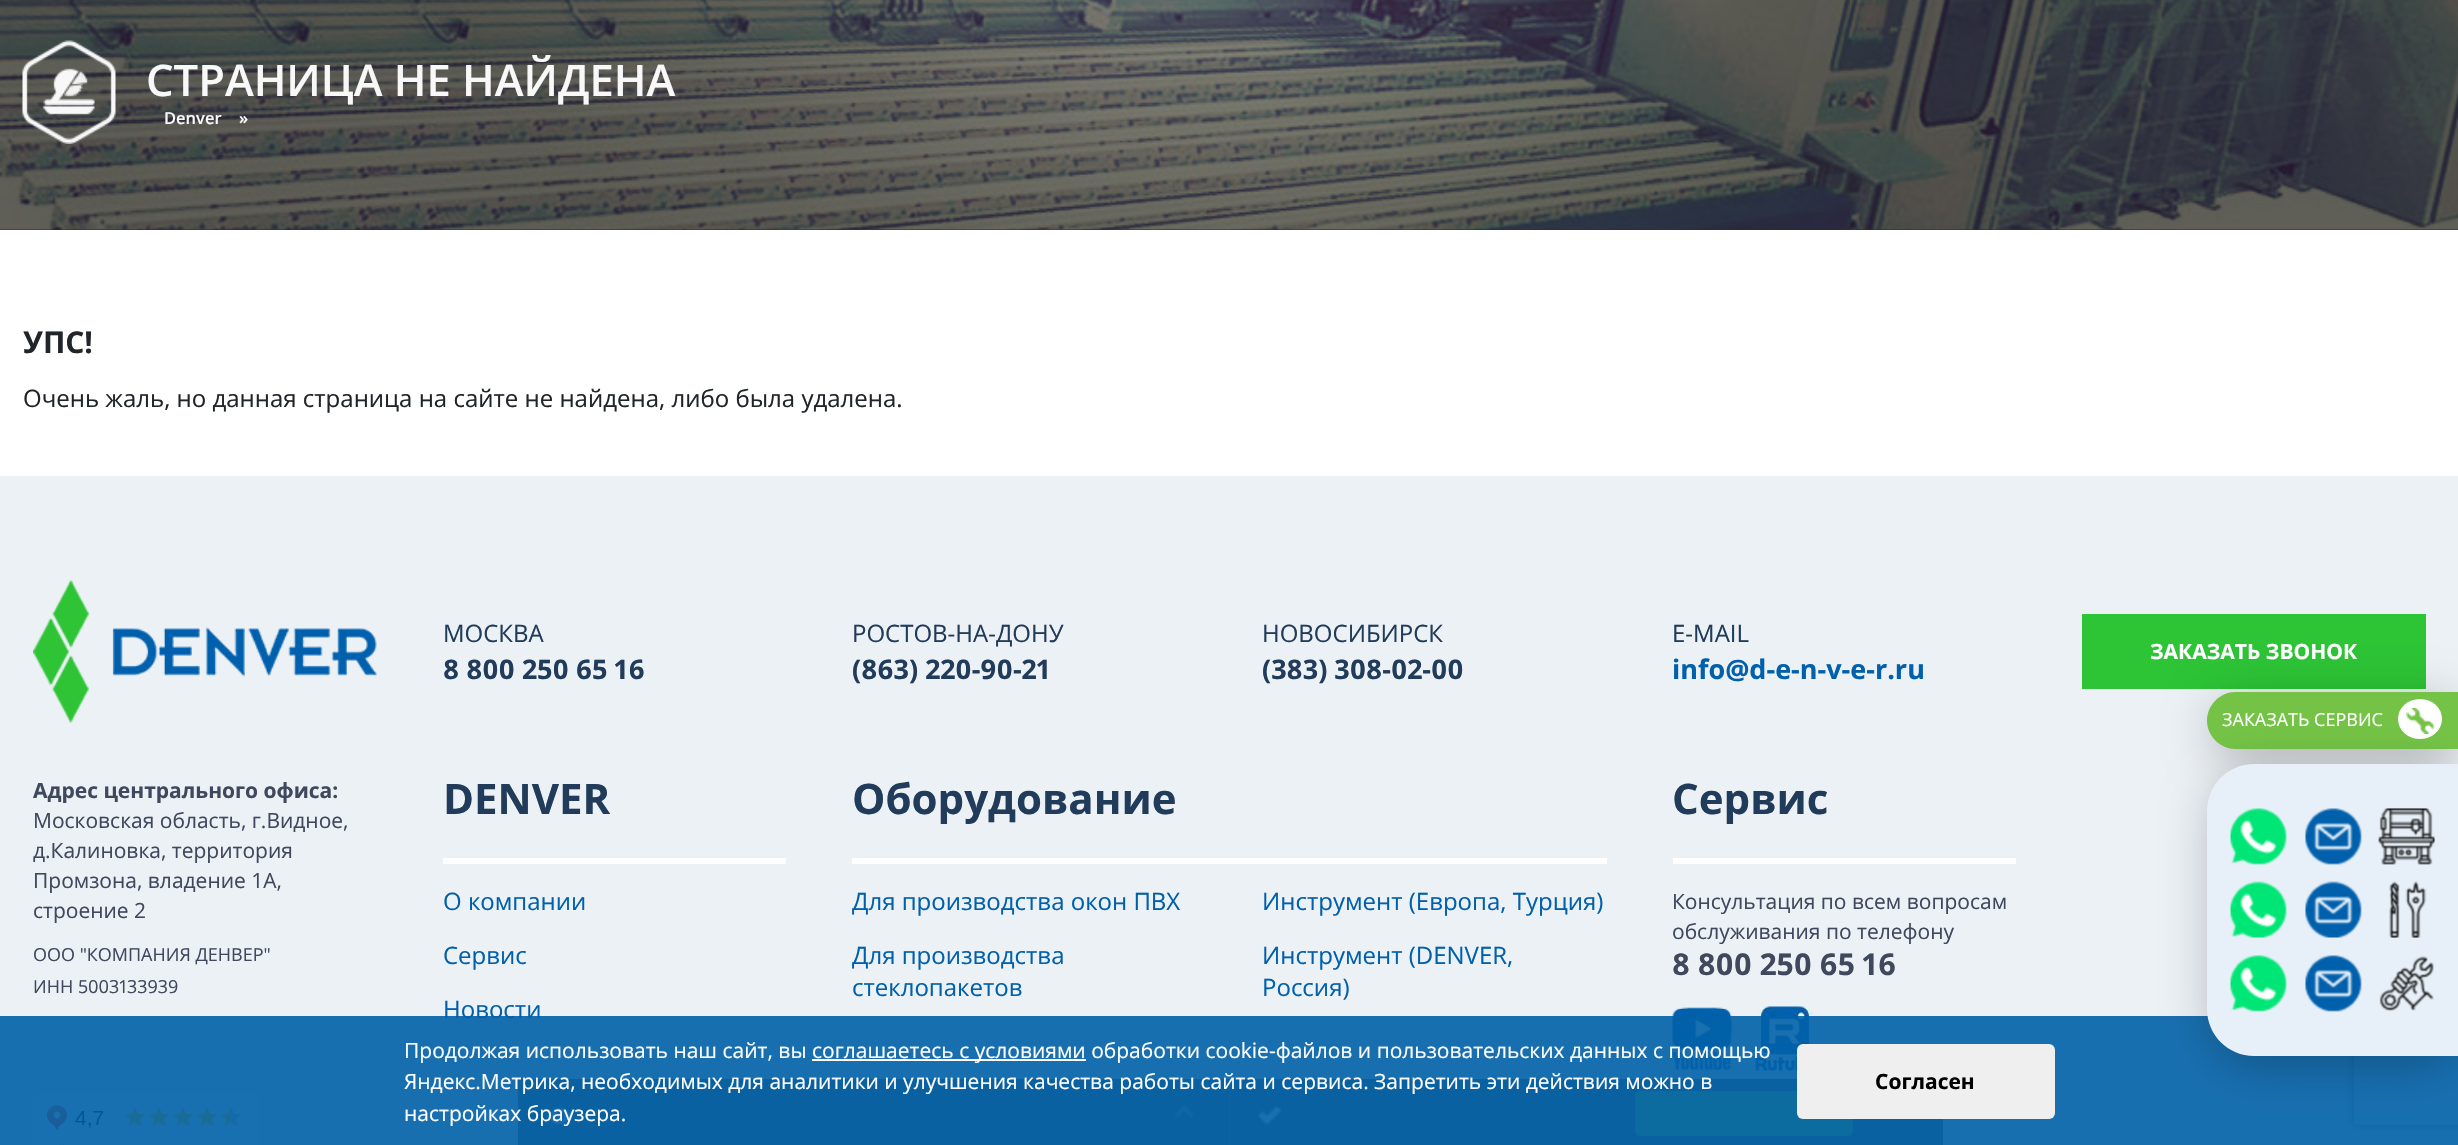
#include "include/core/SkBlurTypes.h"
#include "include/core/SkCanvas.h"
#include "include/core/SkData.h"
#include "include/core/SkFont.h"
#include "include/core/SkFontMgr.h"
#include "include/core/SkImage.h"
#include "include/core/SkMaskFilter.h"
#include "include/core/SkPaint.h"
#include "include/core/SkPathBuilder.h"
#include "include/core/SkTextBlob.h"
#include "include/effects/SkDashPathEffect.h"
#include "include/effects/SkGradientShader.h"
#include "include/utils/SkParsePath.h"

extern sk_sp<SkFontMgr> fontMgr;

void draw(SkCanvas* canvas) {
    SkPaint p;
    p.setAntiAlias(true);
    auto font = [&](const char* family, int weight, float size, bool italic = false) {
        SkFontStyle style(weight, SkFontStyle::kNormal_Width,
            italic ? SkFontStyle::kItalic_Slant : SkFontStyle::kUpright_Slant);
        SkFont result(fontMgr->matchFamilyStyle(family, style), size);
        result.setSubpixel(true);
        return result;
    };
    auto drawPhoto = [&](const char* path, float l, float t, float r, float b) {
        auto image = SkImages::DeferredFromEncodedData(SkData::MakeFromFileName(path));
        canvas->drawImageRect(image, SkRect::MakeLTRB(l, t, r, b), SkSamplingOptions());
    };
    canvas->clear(0xFFFFFFFF);
    p.setColor(0xFF2E2E2E);
    canvas->drawRect(SkRect::MakeLTRB(0, 229, 2458, 230), p);
    drawPhoto("media/1.png", 0, 0, 2458, 230);
    drawPhoto("media/2.png", 22, 40, 116, 144);
    auto font1 = font("Open Sans", 600, 43.5f);
    p.setColor(0xFFF8F8F8);
    canvas->drawString("СТРАНИЦА НЕ НАЙДЕНА", 146, 96, font1, p);
    auto font2 = font("Open Sans", 600, 16.5f);
    canvas->drawString("Denver", 164, 124, font2, p);
    canvas->drawString("»", 239, 124, font2, p);
    auto font3 = font("Open Sans", 700, 30);
    p.setColor(0xFF212529);
    canvas->drawString("УПС!", 23, 353, font3, p);
    auto font4 = font("Open Sans", 400, 24);
    canvas->drawString("Очень жаль, но данная страница на сайте не найдена, либо была удалена.", 23, 407, font4, p);
    p.setColor(0xFFECF1F5);
    canvas->drawRect(SkRect::MakeLTRB(0, 476, 2458, 1145), p);
    drawPhoto("media/3.png", 33, 580, 377, 723);
    p.setColor(0xFF213C5A);
    canvas->drawString("МОСКВА", 443, 642, font4, p);
    auto font5 = font("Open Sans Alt", 700, 27);
    canvas->drawString("8 800 250 65 16", 443, 679, font5, p);
    canvas->drawString("РОСТОВ-НА-ДОНУ", 852, 642, font4, p);
    canvas->drawString("(863) 220-90-21", 852, 679, font5, p);
    canvas->drawString("НОВОСИБИРСК", 1262, 642, font4, p);
    canvas->drawString("(383) 308-02-00", 1262, 679, font5, p);
    canvas->drawString("E-MAIL", 1672, 642, font4, p);
    auto font6 = font("Open Sans", 700, 27);
    p.setColor(0xFF0060AC);
    canvas->drawString("info@d-e-n-v-e-r.ru", 1672, 679, font6, p);
    p.setColor(0xFF2DC436);
    canvas->drawRect(SkRect::MakeLTRB(2082, 614, 2426, 689), p);
    auto font7 = font("Open Sans", 700, 21);
    p.setColor(0xFFFFFFFF);
    canvas->drawString("ЗАКАЗАТЬ ЗВОНОК", 2150, 659, font7, p);
    p.setColor(0xFF3F485D);
    canvas->drawString("Адрес центрального офиса:", 33, 798, font7, p);
    auto font8 = font("Open Sans", 400, 21);
    {
        const struct { const char* s; float x, y; } items[] = {
            {"Московская область, г.Видное,", 33, 828},
            {"д.Калиновка, территория", 33, 858},
            {"Промзона, владение 1А,", 33, 888},
            {"строение 2", 33, 918},
        };
        for (auto [s, x, y] : items) {
            canvas->drawString(s, x, y, font8, p);
        }
    }
    auto font9 = font("Open Sans", 400, 18);
    canvas->drawString("ООО \"КОМПАНИЯ ДЕНВЕР\"", 33, 961, font9, p);
    auto font10 = font("Open Sans Alt", 400, 18);
    canvas->drawString("ИНН 5003133939", 33, 993, font10, p);
    drawPhoto("media/4.png", 33, 1094, 258, 1145);
    p.setColor(0xFFFFFFFF);
    canvas->drawRect(SkRect::MakeLTRB(443, 858, 786, 864), p);
    auto font11 = font("Open Sans", 700, 42);
    p.setColor(0xFF213C5A);
    canvas->drawString("DENVER", 443, 814, font11, p);
    p.setColor(0xFF0060AC);
    {
        const struct { const char* s; float x, y; } items[] = {
            {"О компании", 443, 910},
            {"Сервис", 443, 964},
            {"Новости", 443, 1018},
        };
        for (auto [s, x, y] : items) {
            canvas->drawString(s, x, y, font4, p);
        }
    }
    p.setColor(0xFFFFFFFF);
    canvas->drawRect(SkRect::MakeLTRB(852, 858, 1607, 864), p);
    p.setColor(0xFF213C5A);
    canvas->drawString("Оборудование", 852, 814, font11, p);
    p.setColor(0xFF0060AC);
    {
        const struct { const char* s; float x, y; } items[] = {
            {"Для производства окон ПВХ", 852, 910},
            {"Инструмент (Европа, Турция)", 1262, 910},
            {"Для производства", 852, 964},
            {"стеклопакетов", 852, 996},
            {"Инструмент (DENVER,", 1262, 964},
            {"Россия)", 1262, 996},
        };
        for (auto [s, x, y] : items) {
            canvas->drawString(s, x, y, font4, p);
        }
    }
    p.setColor(0xFFFFFFFF);
    canvas->drawRect(SkRect::MakeLTRB(1673, 858, 2016, 864), p);
    p.setColor(0xFF213C5A);
    canvas->drawString("Сервис", 1672, 814, font11, p);
    p.setColor(0xFF3F485D);
    canvas->drawString("Консультация по всем вопросам", 1672, 909, font8, p);
    canvas->drawString("обслуживания по телефону", 1672, 939, font8, p);
    auto font12 = font("Open Sans Alt", 700, 30);
    canvas->drawString("8 800 250 65 16", 1672, 975, font12, p);
    drawPhoto("media/5.png", 1672, 1007, 1733, 1070);
    drawPhoto("media/6.png", 1755, 1006, 1815, 1071);
    p.setColor(0xFF838383);
    canvas->drawRect(SkRect::MakeLTRB(1229, 1079, 1230, 1145), p);
    p.setColor(0xFF666666);
    canvas->drawRect(SkRect::MakeLTRB(518, 1079, 1229, 1145), p);
    drawPhoto("media/7.png", 546, 1106, 572, 1126);
    drawPhoto("media/8.png", 1174, 1105, 1194, 1118);
    canvas->drawRect(SkRect::MakeLTRB(1230, 1079, 1943, 1145), p);
    drawPhoto("media/9.png", 1258, 1105, 1282, 1126);
    p.setColor(0xFF74C346);
    canvas->drawRoundRect(SkRect::MakeLTRB(1635, 1091, 1853, 1136), 5, 5, p);
    canvas->save();
    canvas->clipPath(SkPathBuilder(SkPathFillType::kEvenOdd).moveTo(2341, 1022).lineTo(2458, 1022).lineTo(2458, 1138).lineTo(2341, 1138).close().moveTo(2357, 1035).lineTo(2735, 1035).cubicTo(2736.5f, 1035, 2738, 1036.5f, 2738, 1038).lineTo(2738, 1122).cubicTo(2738, 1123.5f, 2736.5f, 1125, 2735, 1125).lineTo(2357, 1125).cubicTo(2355.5f, 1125, 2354, 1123.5f, 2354, 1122).lineTo(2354, 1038).cubicTo(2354, 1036.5f, 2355.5f, 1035, 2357, 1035).close().detach(), true);
    p.setColor(0xFF808080);
    p.setMaskFilter(SkMaskFilter::MakeBlur(kNormal_SkBlurStyle, 4));
    canvas->drawRoundRect(SkRect::MakeLTRB(2354, 1035, 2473, 1125), 3, 3, p);
    p.setMaskFilter(nullptr);
    canvas->restore();
    p.setColor(0xE60061A8);
    canvas->drawRect(SkRect::MakeLTRB(0, 1016, 2458, 1145), p);
    p.setColor(0xFFFFFFFF);
    canvas->drawString("Продолжая использовать наш сайт, вы", 404, 1058, font8, p);
    canvas->drawRect(SkRect::MakeLTRB(812, 1059, 1086, 1061), p);
    {
        const struct { const char* s; float x, y; } items[] = {
            {"соглашаетесь с условиями обработки cookie-файлов и пользовательских данных с помощью", 812, 1058},
            {"Яндекс.Метрика, необходимых для аналитики и улучшения качества работы сайта и сервиса. Запретить эти действия можно в", 404, 1089},
            {"настройках браузера.", 404, 1121},
        };
        for (auto [s, x, y] : items) {
            canvas->drawString(s, x, y, font8, p);
        }
    }
    p.setColor(0xFFEFEFEF);
    canvas->drawRoundRect(SkRect::MakeLTRB(1797, 1044, 2055, 1119), 6, 6, p);
    p.setColor(0xFF000000);
    canvas->drawString("Согласен", 1875, 1089, font7, p);
    p.setColor(0x3D000000);
    p.setMaskFilter(SkMaskFilter::MakeBlur(kNormal_SkBlurStyle, 23.5f));
    canvas->drawRoundRect(SkRect::MakeLTRB(2211, 701, 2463, 758), 28.5f, 28.5f, p);
    p.setMaskFilter(nullptr);
    p.setColor(0xFF74C346);
    canvas->drawPath(SkPathBuilder().moveTo(2235.5f, 692).lineTo(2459, 692).lineTo(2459, 749).lineTo(2235.5f, 749).cubicTo(2220, 749, 2207, 736, 2207, 720.5f).cubicTo(2207, 705, 2220, 692, 2235.5f, 692).close().detach(), p);
    p.setColor(0xFFFFFFFF);
    canvas->drawOval(SkRect::MakeLTRB(2398, 699, 2442, 739), p);
    drawPhoto("media/19.png", 2406, 708, 2435, 734);
    p.setColor(0x3D000000);
    p.setMaskFilter(SkMaskFilter::MakeBlur(kNormal_SkBlurStyle, 23.5f));
    canvas->drawRoundRect(SkRect::MakeLTRB(2211, 773, 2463, 1065), 47, 47, p);
    p.setMaskFilter(nullptr);
    p.setColor(0xFFE7F0F8);
    canvas->drawPath(SkPathBuilder().moveTo(2254, 764).lineTo(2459, 764).lineTo(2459, 1056).lineTo(2254, 1056).cubicTo(2228, 1056, 2207, 1035, 2207, 1009).lineTo(2207, 811).cubicTo(2207, 785, 2228, 764, 2254, 764).close().detach(), p);
    drawPhoto("media/10.png", 2230, 808, 2287, 865);
    drawPhoto("media/11.png", 2305, 808, 2362, 865);
    drawPhoto("media/12.png", 2378, 808, 2435, 865);
    drawPhoto("media/13.png", 2230, 881, 2287, 938);
    drawPhoto("media/14.png", 2305, 881, 2362, 938);
    drawPhoto("media/15.png", 2389, 881, 2427, 938);
    drawPhoto("media/16.png", 2230, 955, 2287, 1012);
    drawPhoto("media/17.png", 2305, 955, 2362, 1012);
    drawPhoto("media/18.png", 2379, 956, 2434, 1012);
    p.setColor(0xFFFFFFFF);
    canvas->drawString("ЗАКАЗАТЬ СЕРВИС", 2222, 726, font9, p);
}
